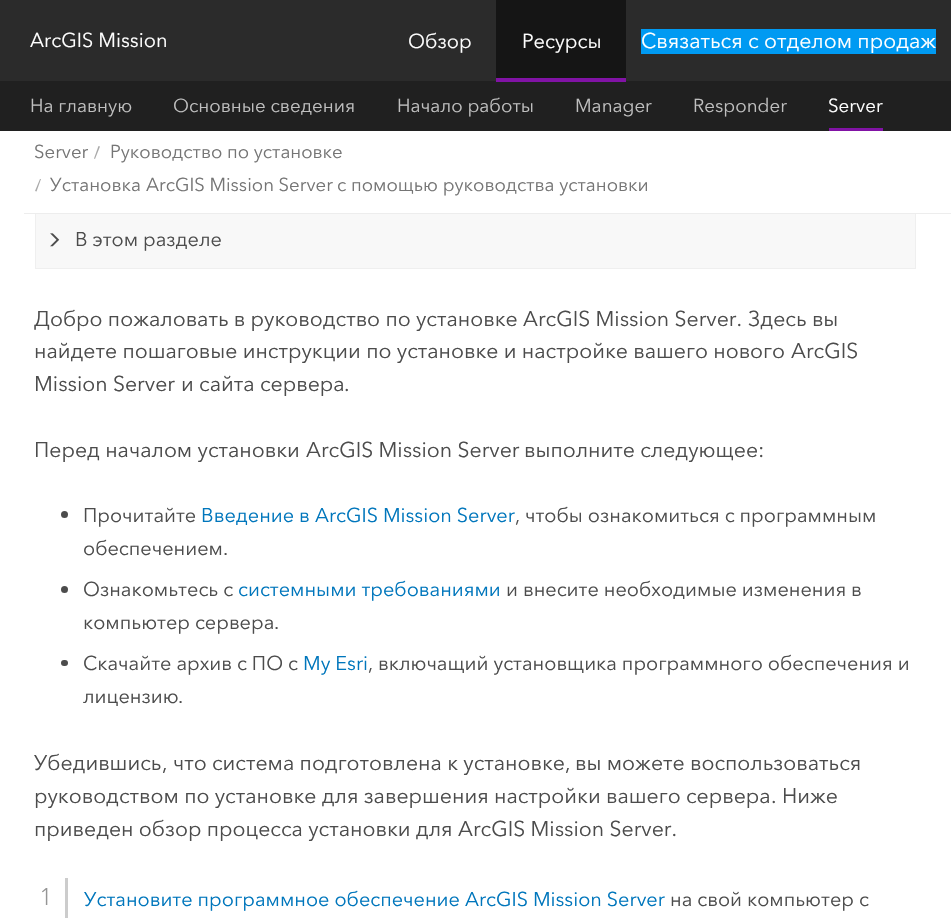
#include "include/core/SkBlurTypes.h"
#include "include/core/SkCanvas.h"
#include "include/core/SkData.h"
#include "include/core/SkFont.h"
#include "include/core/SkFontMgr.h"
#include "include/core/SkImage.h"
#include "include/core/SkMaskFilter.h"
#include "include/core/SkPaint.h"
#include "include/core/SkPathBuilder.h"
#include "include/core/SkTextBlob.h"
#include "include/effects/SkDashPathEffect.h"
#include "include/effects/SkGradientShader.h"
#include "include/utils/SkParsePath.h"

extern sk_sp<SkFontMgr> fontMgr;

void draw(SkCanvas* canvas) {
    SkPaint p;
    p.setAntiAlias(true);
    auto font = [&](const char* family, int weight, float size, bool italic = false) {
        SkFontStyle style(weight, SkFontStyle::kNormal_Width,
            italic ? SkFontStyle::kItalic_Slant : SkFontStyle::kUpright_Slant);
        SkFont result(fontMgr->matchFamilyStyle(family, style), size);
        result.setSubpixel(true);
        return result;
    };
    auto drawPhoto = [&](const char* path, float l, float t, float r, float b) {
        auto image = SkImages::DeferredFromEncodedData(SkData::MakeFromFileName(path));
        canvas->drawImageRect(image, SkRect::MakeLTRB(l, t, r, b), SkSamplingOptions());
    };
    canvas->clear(0xFFFFFFFF);
    p.setColor(0xFF2B2B2B);
    canvas->drawRect(SkRect::MakeLTRB(0, 0, 951, 81), p);
    auto font1 = font("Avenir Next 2", 400, 20);
    p.setColor(0xFFFFFFFF);
    canvas->drawString("ArcGIS Mission", 30, 47, font1, p);
    auto font2 = font("Avenir Next", 400, 20);
    canvas->drawString("Обзор", 408, 48, font2, p);
    {
        const struct { float l, t, r, b; SkColor color; } items[] = {
            {496, 0, 626, 78, 0xFF151515},
            {0, 81, 951, 131, 0xFF202020},
            {496, 78, 626, 82, 0xFF8113A5},
        };
        for (auto [l, t, r, b, color] : items) {
            p.setColor(color);
            canvas->drawRect(SkRect::MakeLTRB(l, t, r, b), p);
        }
    }
    p.setColor(0xFFFFFFFF);
    canvas->drawString("Ресурсы", 522, 48, font2, p);
    p.setColor(0xFF009AF2);
    canvas->drawRect(SkRect::MakeLTRB(641, 29, 936, 54), p);
    auto font3 = font("Avenir Next", 400, 21.25f);
    p.setColor(0xFFFFFFFF);
    canvas->drawString("Связаться с отделом продаж", 641, 48, font3, p);
    auto font4 = font("Avenir Next", 400, 18.75f);
    p.setColor(0xFFBFBFBF);
    {
        const struct { const char* s; float x, y; } items[] = {
            {"На главную", 30, 112},
            {"Основные сведения", 173, 112},
            {"Начало работы", 397, 112},
        };
        for (auto [s, x, y] : items) {
            canvas->drawString(s, x, y, font4, p);
        }
    }
    auto font5 = font("Avenir Next 2", 400, 18.75f);
    canvas->drawString("Manager", 575, 112, font5, p);
    canvas->drawString("Responder", 693, 112, font5, p);
    p.setColor(0xFF8113A5);
    canvas->drawRect(SkRect::MakeLTRB(829, 128, 883, 131), p);
    p.setColor(0xFFFFFFFF);
    canvas->drawString("Server", 828, 112, font5, p);
    {
        const struct { float l, t, r, b; SkColor color; } items[] = {
            {915, 211, 916, 269, 0xFFEFEFEF},
            {35, 268, 916, 269, 0xFFEFEFEF},
            {35, 211, 36, 269, 0xFFEFEFEF},
            {35, 211, 916, 213, 0xFFFFFFFF},
            {24, 213, 951, 214, 0xFFEDEDED},
        };
        for (auto [l, t, r, b, color] : items) {
            p.setColor(color);
            canvas->drawRect(SkRect::MakeLTRB(l, t, r, b), p);
        }
    }
    auto font6 = font("Avenir Next 2", 400, 18.6f);
    p.setColor(0xFF757575);
    canvas->drawString("Server", 34, 158, font6, p);
    p.setColor(0xFFA9A9A9);
    canvas->drawPath(SkPathBuilder().moveTo(95, 159).lineTo(94, 158.5f).lineTo(98.5f, 146).lineTo(100, 146.5f).close().detach(), p);
    auto font7 = font("Avenir Next", 400, 18.6f);
    p.setColor(0xFF757575);
    canvas->drawString("Руководство по установке", 110, 158, font7, p);
    p.setColor(0xFFA9A9A9);
    canvas->drawPath(SkPathBuilder().moveTo(36.5f, 191.5f).lineTo(35, 191).lineTo(40, 179).lineTo(41, 179).close().detach(), p);
    p.setColor(0xFF757575);
    canvas->drawString("Установка", 50, 191, font7, p);
    canvas->drawString("ArcGIS Mission Server", 146, 191, font6, p);
    canvas->drawString("с помощью руководства установки", 337, 191, font7, p);
    p.setColor(0xFFF8F8F8);
    canvas->drawRect(SkRect::MakeLTRB(36, 214, 915, 268), p);
    drawPhoto("media/1.png", 50, 233, 60, 247);
    auto font8 = font("Avenir Next", 400, 19.9f);
    p.setColor(0xFF4C4C4C);
    canvas->drawString("В этом разделе", 75, 246, font8, p);
    canvas->drawString("Добро пожаловать в руководство по установке", 34, 326, font3, p);
    auto font9 = font("Avenir Next 2", 400, 21.25f);
    canvas->drawString("ArcGIS Mission Server.", 523, 326, font9, p);
    canvas->drawString("Здесь вы", 748, 326, font3, p);
    canvas->drawString("найдете пошаговые инструкции по установке и настройке вашего нового", 34, 358, font3, p);
    canvas->drawString("ArcGIS", 791, 358, font9, p);
    canvas->drawString("Mission Server", 34, 391, font9, p);
    canvas->drawString("и сайта сервера", 181, 391, font3, p);
    canvas->drawString(".", 344, 391, font9, p);
    canvas->drawString("Перед началом установки", 34, 457, font3, p);
    canvas->drawString("ArcGIS Mission Server", 306, 457, font9, p);
    canvas->drawString("выполните следующее", 524, 457, font3, p);
    canvas->drawString(":", 758, 457, font9, p);
    canvas->drawCircle(64.5f, 514.5f, 3.5f, p);
    canvas->drawString("Прочитайте", 83, 522, font8, p);
    p.setColor(0xFF0076BC);
    canvas->drawString("Введение в", 201, 522, font8, p);
    auto font10 = font("Avenir Next 2", 400, 19.9f);
    canvas->drawString("ArcGIS Mission Server", 315, 522, font10, p);
    p.setColor(0xFF4C4C4C);
    canvas->drawString("чтобы ознакомиться с программным", 525, 522, font8, p);
    canvas->drawString(",", 515, 522, font10, p);
    canvas->drawString("обеспечением", 83, 555, font8, p);
    canvas->drawString(".", 223, 555, font10, p);
    canvas->drawCircle(64.5f, 589.5f, 3.5f, p);
    canvas->drawString("Ознакомьтесь с", 83, 596, font8, p);
    p.setColor(0xFF0076BC);
    canvas->drawString("системными требованиями", 238, 596, font8, p);
    p.setColor(0xFF4C4C4C);
    canvas->drawString("и внесите необходимые изменения в", 506, 596, font8, p);
    canvas->drawString("компьютер сервера", 83, 629, font8, p);
    canvas->drawString(".", 274, 629, font10, p);
    canvas->drawRoundRect(SkRect::MakeLTRB(61, 660, 68, 666), 3, 3, p);
    canvas->drawString("Скачайте архив с ПО с", 83, 670, font8, p);
    p.setColor(0xFF0076BC);
    canvas->drawString("My Esri", 303, 670, font10, p);
    p.setColor(0xFF4C4C4C);
    canvas->drawString("включащий установщика программного обеспечения и", 378, 670, font8, p);
    canvas->drawString(",", 368, 670, font10, p);
    canvas->drawString("лицензию", 83, 703, font8, p);
    canvas->drawString(".", 178, 703, font10, p);
    canvas->drawString("Убедившись", 34, 770, font3, p);
    canvas->drawString(",", 162, 770, font9, p);
    canvas->drawString("что система подготовлена к установке", 173, 770, font3, p);
    canvas->drawString(",", 565, 770, font9, p);
    canvas->drawString("вы можете воспользоваться", 575, 770, font3, p);
    canvas->drawString("руководством по установке для завершения настройки вашего сервера", 34, 803, font3, p);
    canvas->drawString(".", 771, 803, font9, p);
    canvas->drawString("Ниже", 782, 803, font3, p);
    canvas->drawString("приведен обзор процесса установки для", 34, 836, font3, p);
    canvas->drawString("ArcGIS Mission Server.", 458, 836, font9, p);
    p.setColor(0xFFCCCCCC);
    canvas->drawRect(SkRect::MakeLTRB(65, 878, 68, 918), p);
    auto font11 = font("Avenir Next", 300, 24);
    p.setColor(0xFF959595);
    canvas->drawString("1", 39, 905, font11, p);
    p.setColor(0xFF0076BC);
    canvas->drawString("Установите программное обеспечение", 84, 906, font8, p);
    canvas->drawString("ArcGIS Mission Server", 465, 906, font10, p);
    p.setColor(0xFF4C4C4C);
    canvas->drawString("на свой компьютер с", 670, 906, font8, p);
}
